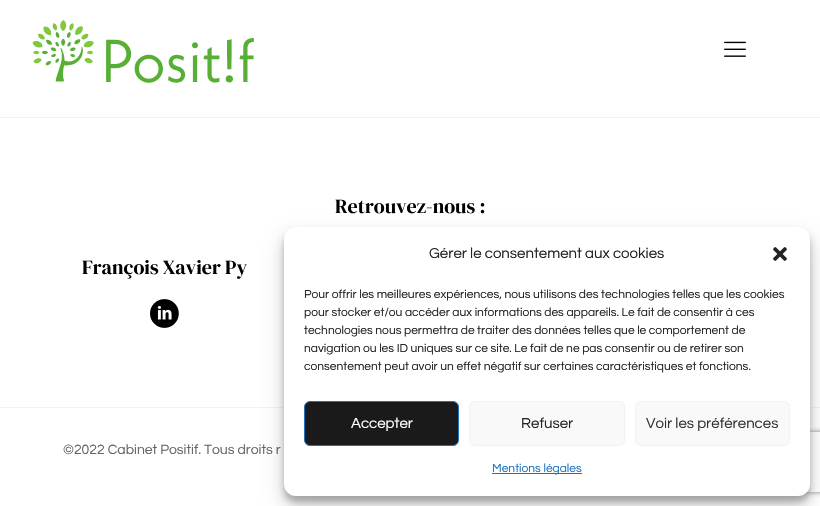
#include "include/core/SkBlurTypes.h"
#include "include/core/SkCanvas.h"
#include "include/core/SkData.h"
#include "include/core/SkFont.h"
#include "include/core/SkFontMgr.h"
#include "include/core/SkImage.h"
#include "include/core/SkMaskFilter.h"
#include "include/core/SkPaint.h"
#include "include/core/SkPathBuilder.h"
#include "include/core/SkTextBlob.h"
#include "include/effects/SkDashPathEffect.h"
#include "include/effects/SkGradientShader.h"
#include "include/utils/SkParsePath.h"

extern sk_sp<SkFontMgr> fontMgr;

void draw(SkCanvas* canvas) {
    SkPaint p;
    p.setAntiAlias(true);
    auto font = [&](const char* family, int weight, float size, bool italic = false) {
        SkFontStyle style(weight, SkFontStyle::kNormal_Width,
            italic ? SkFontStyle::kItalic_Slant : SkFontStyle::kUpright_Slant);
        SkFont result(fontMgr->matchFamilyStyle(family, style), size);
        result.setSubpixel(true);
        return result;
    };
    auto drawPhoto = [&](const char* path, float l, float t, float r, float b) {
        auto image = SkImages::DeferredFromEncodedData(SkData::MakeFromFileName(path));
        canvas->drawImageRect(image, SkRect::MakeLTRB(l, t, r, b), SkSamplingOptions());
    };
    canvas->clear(0xFFFFFFFF);
    drawPhoto("media/1.png", 32, 20, 254, 83);
    drawPhoto("media/2.png", 724, 41, 746, 57);
    p.setColor(0xFFF3F3F3);
    canvas->drawRect(SkRect::MakeLTRB(0, 117, 820, 118), p);
    auto font1 = font("DM Serif Display", 400, 20);
    p.setColor(0xFF000000);
    canvas->drawString("Retrouvez-nous :", 335, 213, font1, p);
    canvas->drawString("François Xavier Py", 82, 274, font1, p);
    drawPhoto("media/3.png", 150, 299, 179, 328);
    p.setColor(0xFFF3F3F3);
    canvas->drawRect(SkRect::MakeLTRB(0, 407, 820, 408), p);
    auto font2 = font("Questrial", 400, 14);
    p.setColor(0xFF666666);
    canvas->drawString("©2022 Cabinet Positif. Tous droits r", 63, 454, font2, p);
    p.setColor(0x3B000000);
    p.setMaskFilter(SkMaskFilter::MakeBlur(kNormal_SkBlurStyle, 3));
    canvas->drawRoundRect(SkRect::MakeLTRB(284, 233, 810, 502), 12, 12, p);
    p.setMaskFilter(nullptr);
    p.setColor(0x30000000);
    p.setMaskFilter(SkMaskFilter::MakeBlur(kNormal_SkBlurStyle, 10));
    canvas->drawRoundRect(SkRect::MakeLTRB(284, 237, 810, 506), 12, 12, p);
    p.setMaskFilter(nullptr);
    canvas->save();
    canvas->clipPath(SkPathBuilder(SkPathFillType::kEvenOdd).moveTo(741, 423).lineTo(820, 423).lineTo(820, 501).lineTo(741, 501).close().moveTo(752, 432).lineTo(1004, 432).cubicTo(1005, 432, 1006, 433, 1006, 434).lineTo(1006, 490).cubicTo(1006, 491, 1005, 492, 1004, 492).lineTo(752, 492).cubicTo(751, 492, 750, 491, 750, 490).lineTo(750, 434).cubicTo(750, 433, 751, 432, 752, 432).close().detach(), true);
    p.setColor(0xFF808080);
    p.setMaskFilter(SkMaskFilter::MakeBlur(kNormal_SkBlurStyle, 2.5f));
    canvas->drawRoundRect(SkRect::MakeLTRB(750, 432, 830, 492), 2, 2, p);
    p.setMaskFilter(nullptr);
    canvas->restore();
    p.setColor(0xFFFFFFFF);
    canvas->drawRoundRect(SkRect::MakeLTRB(284, 227, 810, 496), 12, 12, p);
    auto font3 = font("Questrial", 400, 15);
    p.setColor(0xFF222222);
    canvas->drawString("Gérer le consentement aux cookies", 429, 258, font3, p);
    drawPhoto("media/4.png", 773, 247, 787, 261);
    auto font4 = font("Questrial", 400, 12);
    {
        const struct { const char* s; float x, y; } items[] = {
            {"Pour offrir les meilleures expériences, nous utilisons des technologies telles que les cookies", 304, 298},
            {"pour stocker et/ou accéder aux informations des appareils. Le fait de consentir à ces", 304, 316},
            {"technologies nous permettra de traiter des données telles que le comportement de", 304, 334},
            {"navigation ou les ID uniques sur ce site. Le fait de ne pas consentir ou de retirer son", 304, 352},
            {"consentement peut avoir un effet négatif sur certaines caractéristiques et fonctions.", 304, 370},
        };
        for (auto [s, x, y] : items) {
            canvas->drawString(s, x, y, font4, p);
        }
    }
    p.setColor(0xFF1A1A1A);
    canvas->drawRoundRect(SkRect::MakeLTRB(304.5f, 401.5f, 458.5f, 445.5f), 5.5f, 5.5f, p);
    p.setStyle(SkPaint::kStroke_Style);
    p.setStrokeWidth(1);
    p.setColor(0xFF1E73BE);
    canvas->drawRoundRect(SkRect::MakeLTRB(304.5f, 401.5f, 458.5f, 445.5f), 5.5f, 5.5f, p);
    p.setStyle(SkPaint::kFill_Style);
    p.setColor(0xFFFFFFFF);
    canvas->drawString("Accepter", 351, 428, font3, p);
    p.setColor(0xFFF9F9F9);
    canvas->drawRoundRect(SkRect::MakeLTRB(469.5f, 401.5f, 624.5f, 445.5f), 5.5f, 5.5f, p);
    p.setStyle(SkPaint::kStroke_Style);
    p.setColor(0xFFF2F2F2);
    canvas->drawRoundRect(SkRect::MakeLTRB(469.5f, 401.5f, 624.5f, 445.5f), 5.5f, 5.5f, p);
    p.setStyle(SkPaint::kFill_Style);
    p.setColor(0xFF222222);
    canvas->drawString("Refuser", 521, 428, font3, p);
    p.setColor(0xFFF9F9F9);
    canvas->drawRoundRect(SkRect::MakeLTRB(635.5f, 401.5f, 789.5f, 445.5f), 5.5f, 5.5f, p);
    p.setStyle(SkPaint::kStroke_Style);
    p.setColor(0xFFF2F2F2);
    canvas->drawRoundRect(SkRect::MakeLTRB(635.5f, 401.5f, 789.5f, 445.5f), 5.5f, 5.5f, p);
    p.setStyle(SkPaint::kFill_Style);
    p.setColor(0xFF333333);
    canvas->drawString("Voir les préférences", 646, 428, font3, p);
    p.setColor(0xFF1E73BE);
    canvas->drawRect(SkRect::MakeLTRB(492, 473, 582, 474), p);
    canvas->drawString("Mentions légales", 492, 472, font4, p);
}
